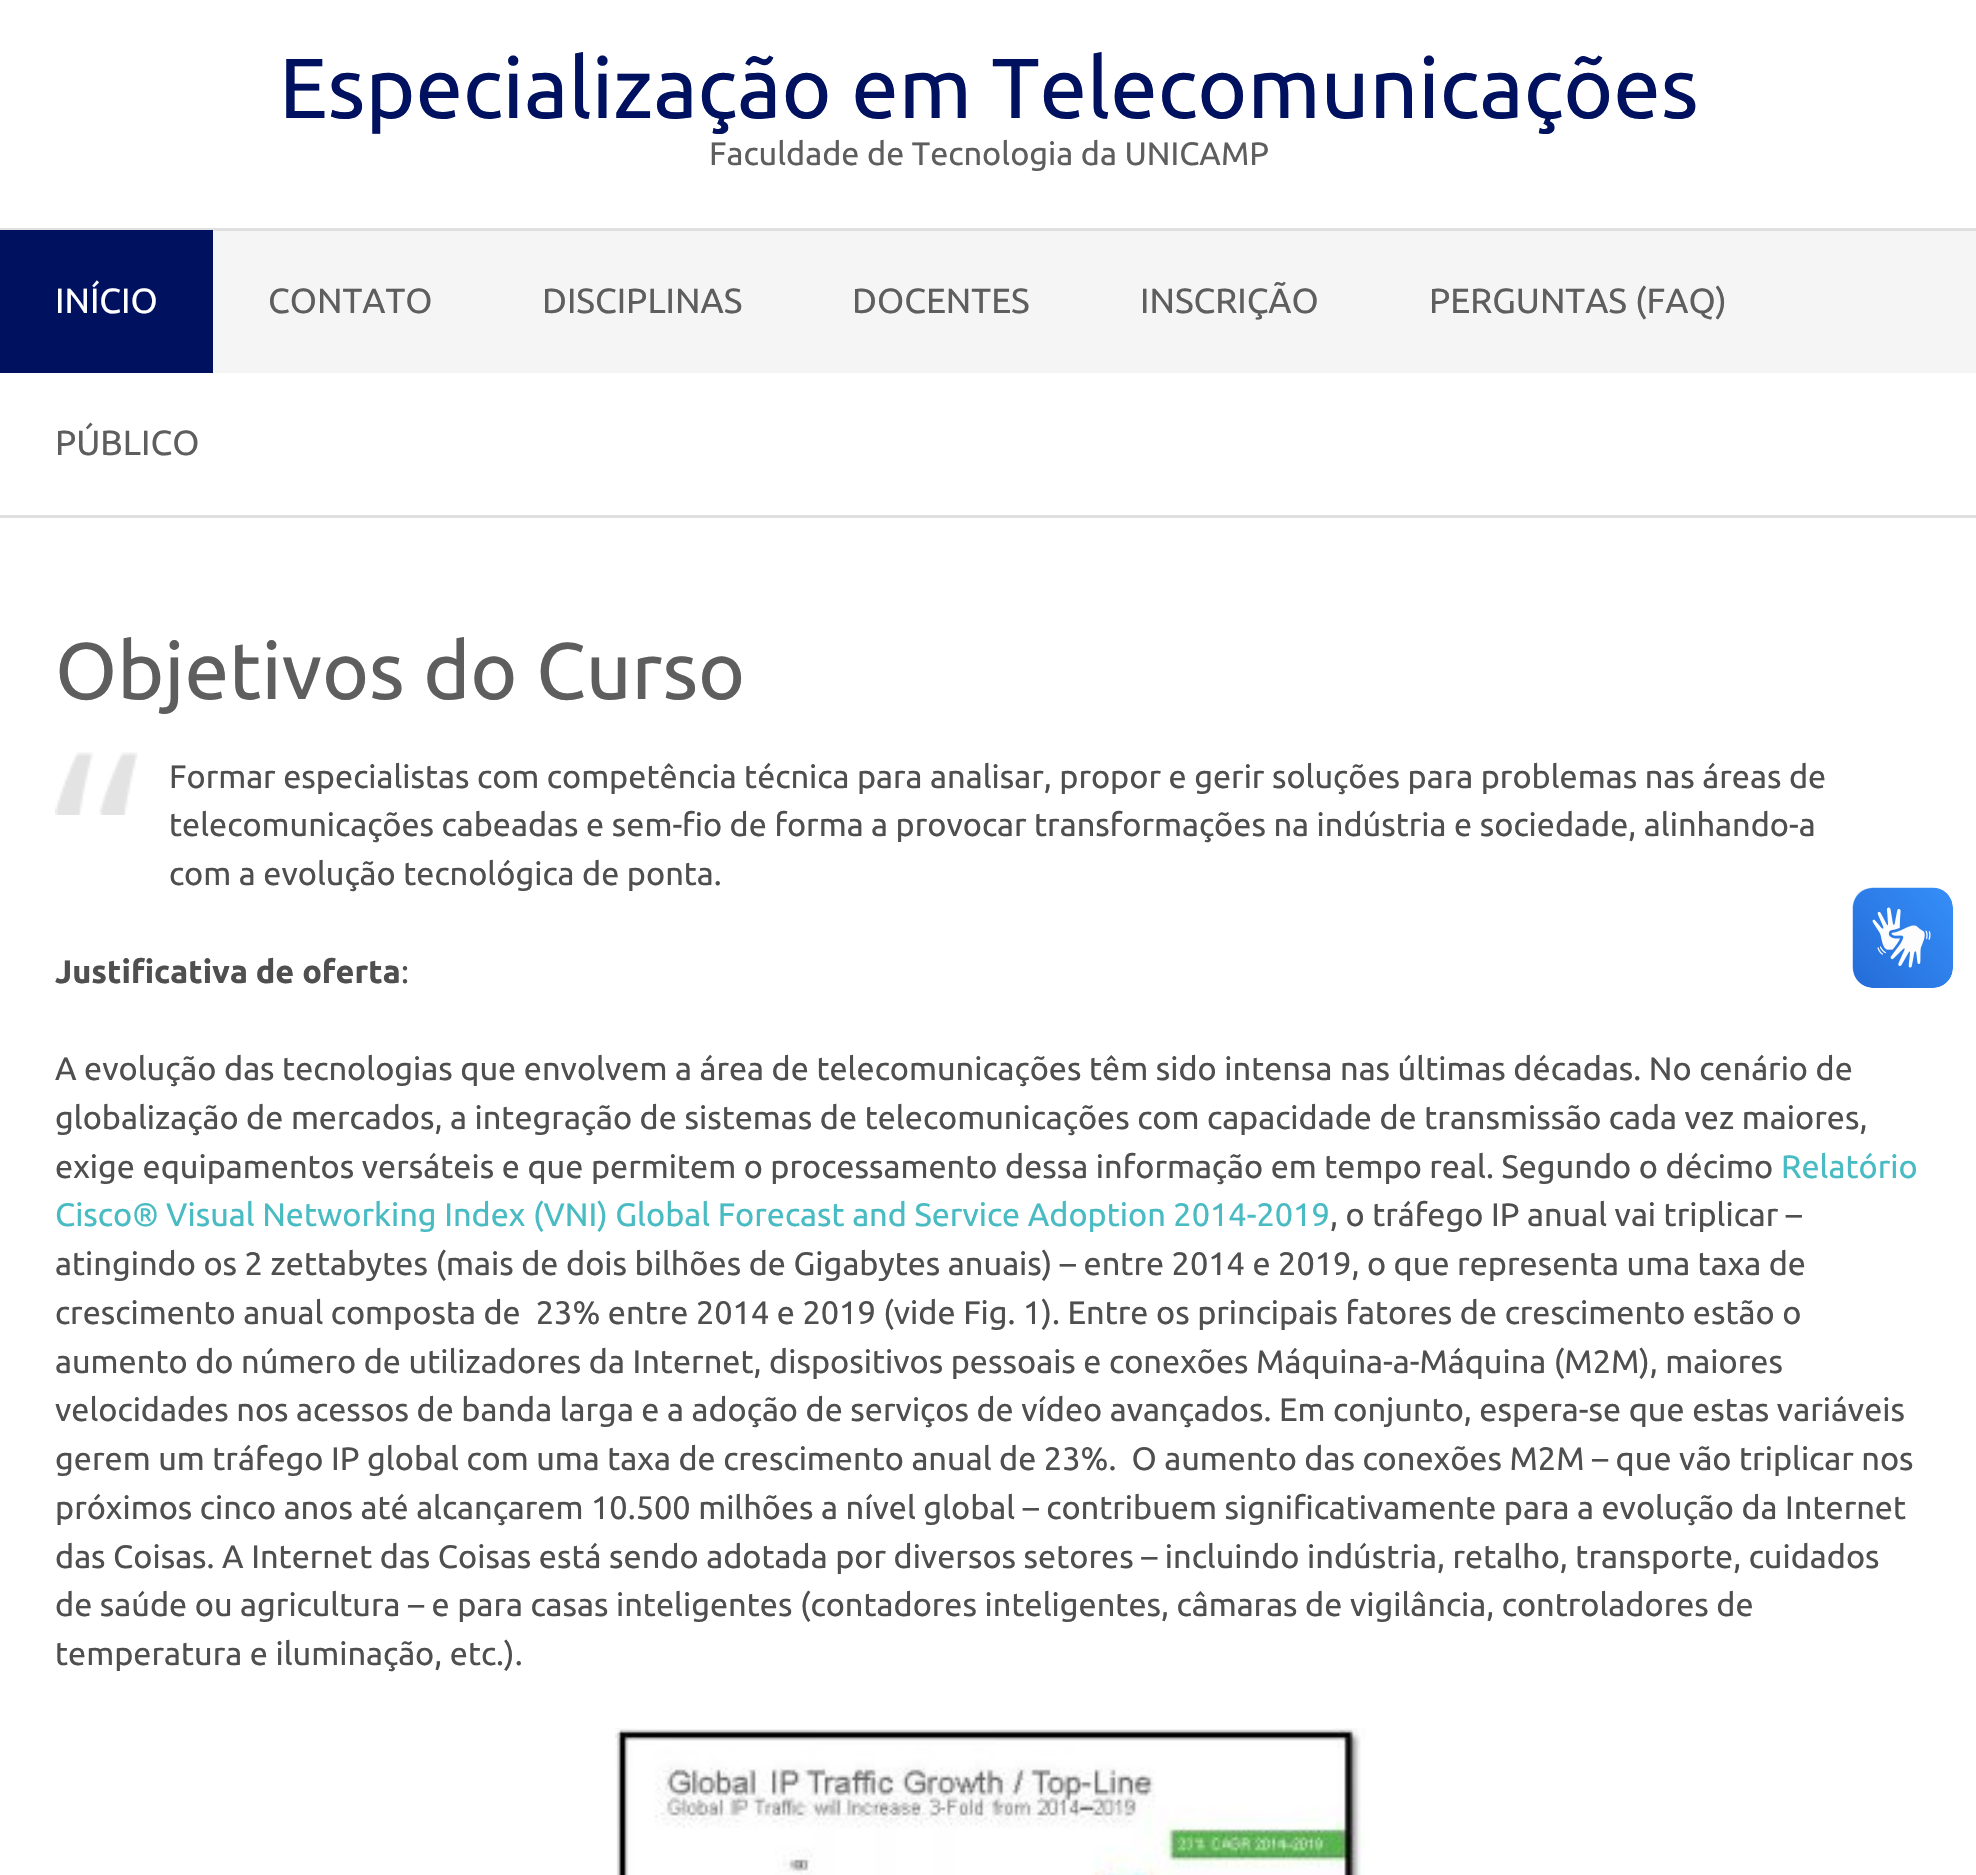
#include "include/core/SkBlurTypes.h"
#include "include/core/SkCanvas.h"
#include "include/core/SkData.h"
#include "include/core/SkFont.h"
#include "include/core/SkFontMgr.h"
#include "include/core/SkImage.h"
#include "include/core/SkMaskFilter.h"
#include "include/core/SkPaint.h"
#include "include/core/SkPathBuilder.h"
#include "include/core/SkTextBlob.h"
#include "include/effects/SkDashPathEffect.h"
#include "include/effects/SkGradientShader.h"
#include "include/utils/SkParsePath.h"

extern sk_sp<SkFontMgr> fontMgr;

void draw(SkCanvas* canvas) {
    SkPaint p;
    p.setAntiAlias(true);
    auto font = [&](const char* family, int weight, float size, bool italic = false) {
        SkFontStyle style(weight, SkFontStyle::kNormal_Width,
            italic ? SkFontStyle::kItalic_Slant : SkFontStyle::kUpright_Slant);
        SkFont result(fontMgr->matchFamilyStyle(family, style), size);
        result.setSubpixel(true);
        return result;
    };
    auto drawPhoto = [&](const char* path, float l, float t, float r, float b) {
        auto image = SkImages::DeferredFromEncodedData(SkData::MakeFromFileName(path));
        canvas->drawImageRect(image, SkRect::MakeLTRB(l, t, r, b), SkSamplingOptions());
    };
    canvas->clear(0xFFFFFFFF);
    p.setColor(0xFFE0E0E0);
    canvas->drawRect(SkRect::MakeLTRB(0, 515, 1976, 518), p);
    auto font1 = font("Ubuntu", 400, 85);
    p.setColor(0xFF001160);
    canvas->drawString("Especialização em Telecomunicações", 279, 118, font1, p);
    auto font2 = font("Ubuntu", 400, 32.5f);
    p.setColor(0xFF5E5E5E);
    canvas->drawString("Faculdade de Tecnologia da UNICAMP", 709, 165, font2, p);
    {
        const struct { float l, t, r, b; SkColor color; } items[] = {
            {213, 231, 1976, 373, 0xFFF5F5F5},
            {0, 228, 1976, 231, 0xFFE0E0E0},
            {0, 230, 213, 373, 0xFF001160},
        };
        for (auto [l, t, r, b, color] : items) {
            p.setColor(color);
            canvas->drawRect(SkRect::MakeLTRB(l, t, r, b), p);
        }
    }
    auto font3 = font("Ubuntu", 400, 35);
    p.setColor(0xFFFFFFFF);
    canvas->drawString("INÍCIO", 55, 313, font3, p);
    p.setColor(0xFF5E5E5E);
    {
        const struct { const char* s; float x, y; } items[] = {
            {"CONTATO", 268, 313},
            {"DISCIPLINAS", 542, 313},
            {"DOCENTES", 852, 313},
            {"INSCRIÇÃO", 1140, 313},
            {"PERGUNTAS (FAQ)", 1429, 313},
            {"PÚBLICO", 55, 455},
        };
        for (auto [s, x, y] : items) {
            canvas->drawString(s, x, y, font3, p);
        }
    }
    auto font4 = font("Ubuntu", 400, 80);
    canvas->drawString("Objetivos do Curso", 55, 699, font4, p);
    drawPhoto("media/1.png", 55, 752, 138, 815);
    p.setColor(0xFF4F4F4F);
    {
        const struct { const char* s; float x, y; } items[] = {
            {"Formar especialistas com competência técnica para analisar, propor e gerir soluções para problemas nas áreas de", 169, 788},
            {"telecomunicações cabeadas e sem-fio de forma a provocar transformações na indústria e sociedade, alinhando-a", 169, 836},
            {"com a evolução tecnológica de ponta.", 169, 885},
        };
        for (auto [s, x, y] : items) {
            canvas->drawString(s, x, y, font2, p);
        }
    }
    auto font5 = font("Ubuntu", 700, 32.5f);
    canvas->drawString("Justificativa de oferta", 55, 983, font5, p);
    {
        const struct { const char* s; float x, y; } items[] = {
            {":", 401, 983},
            {"A evolução das tecnologias que envolvem a área de telecomunicações têm sido intensa nas últimas décadas. No cenário de", 55, 1080},
            {"globalização de mercados, a integração de sistemas de telecomunicações com capacidade de transmissão cada vez maiores,", 55, 1129},
            {"exige equipamentos versáteis e que permitem o processamento dessa informação em tempo real. Segundo o décimo", 55, 1178},
        };
        for (auto [s, x, y] : items) {
            canvas->drawString(s, x, y, font2, p);
        }
    }
    p.setColor(0xFF49BBC3);
    canvas->drawString("Relatório", 1781, 1178, font2, p);
    canvas->drawString("Cisco® Visual Networking Index (VNI) Global Forecast and Service Adoption 2014-2019", 55, 1226, font2, p);
    p.setColor(0xFF4F4F4F);
    {
        const struct { const char* s; float x, y; } items[] = {
            {", o tráfego IP anual vai triplicar –", 1330, 1226},
            {"atingindo os 2 zettabytes (mais de dois bilhões de Gigabytes anuais) – entre 2014 e 2019, o que representa uma taxa de", 55, 1275},
            {"crescimento anual composta de  23% entre 2014 e 2019 (vide Fig. 1). Entre os principais fatores de crescimento estão o", 55, 1324},
            {"aumento do número de utilizadores da Internet, dispositivos pessoais e conexões Máquina-a-Máquina (M2M), maiores", 55, 1373},
            {"velocidades nos acessos de banda larga e a adoção de serviços de vídeo avançados. Em conjunto, espera-se que estas variáveis", 55, 1421},
            {"gerem um tráfego IP global com uma taxa de crescimento anual de 23%.  O aumento das conexões M2M – que vão triplicar nos", 55, 1470},
            {"próximos cinco anos até alcançarem 10.500 milhões a nível global – contribuem significativamente para a evolução da Internet", 55, 1519},
            {"das Coisas. A Internet das Coisas está sendo adotada por diversos setores – incluindo indústria, retalho, transporte, cuidados", 55, 1568},
            {"de saúde ou agricultura – e para casas inteligentes (contadores inteligentes, câmaras de vigilância, controladores de", 55, 1616},
            {"temperatura e iluminação, etc.).", 55, 1665},
        };
        for (auto [s, x, y] : items) {
            canvas->drawString(s, x, y, font2, p);
        }
    }
    drawPhoto("media/2.png", 615, 1728, 1365, 1875);
    drawPhoto("media/3.png", 1852, 887, 1953, 988);
    drawPhoto("media/4.png", 1853, 888, 1953, 988);
}
